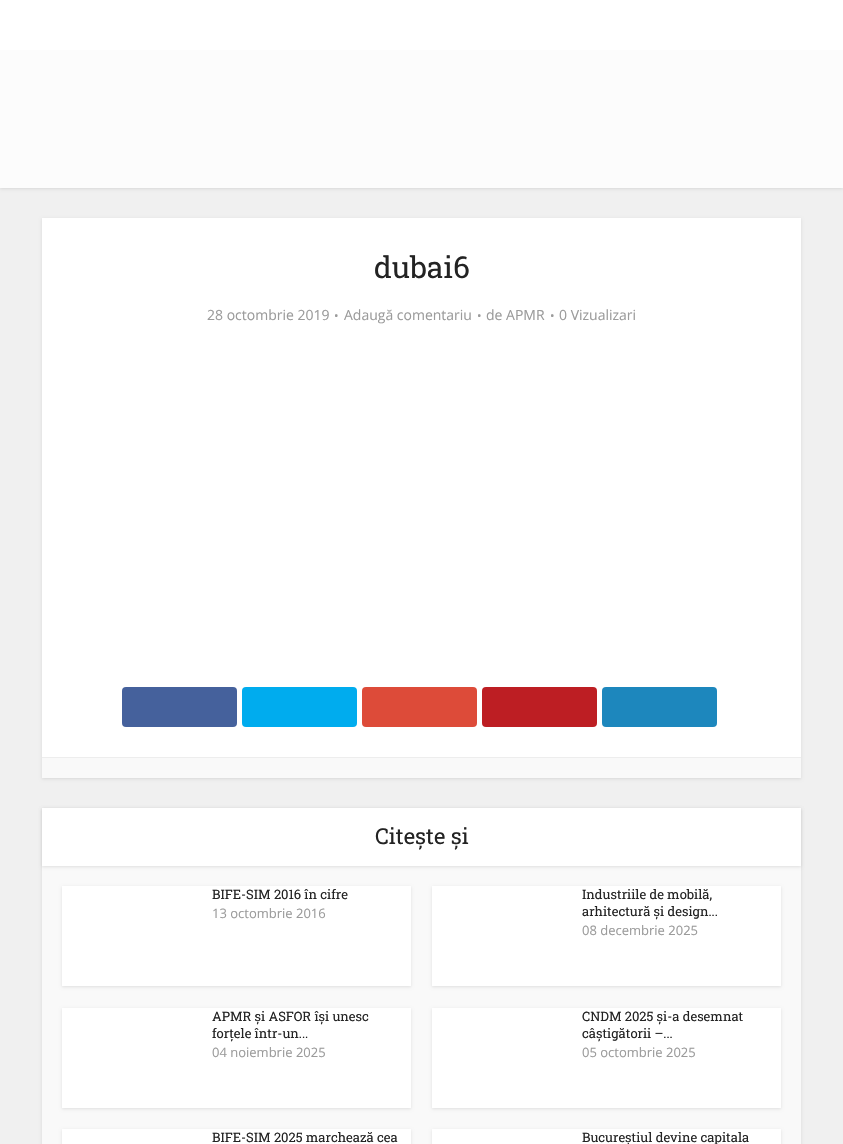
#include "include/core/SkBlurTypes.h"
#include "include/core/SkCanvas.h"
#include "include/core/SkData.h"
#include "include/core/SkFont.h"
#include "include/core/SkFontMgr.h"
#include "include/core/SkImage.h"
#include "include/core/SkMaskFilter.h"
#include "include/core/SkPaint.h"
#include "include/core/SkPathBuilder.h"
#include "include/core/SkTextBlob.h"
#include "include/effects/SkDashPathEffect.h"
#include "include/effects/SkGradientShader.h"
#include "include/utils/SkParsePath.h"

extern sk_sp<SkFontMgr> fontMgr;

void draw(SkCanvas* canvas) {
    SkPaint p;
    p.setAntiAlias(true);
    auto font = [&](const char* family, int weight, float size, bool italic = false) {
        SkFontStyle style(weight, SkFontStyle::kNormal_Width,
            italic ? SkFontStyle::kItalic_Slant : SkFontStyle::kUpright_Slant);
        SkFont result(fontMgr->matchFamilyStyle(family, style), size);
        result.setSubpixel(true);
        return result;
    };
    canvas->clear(0xFFF0F0F0);
    p.setColor(0x1A000000);
    p.setMaskFilter(SkMaskFilter::MakeBlur(kNormal_SkBlurStyle, 1.5f));
    canvas->drawRect(SkRect::MakeLTRB(0, 1, 843, 189), p);
    p.setMaskFilter(nullptr);
    p.setColor(0xFFFFFFFF);
    canvas->drawRect(SkRect::MakeLTRB(0, 0, 843, 50), p);
    p.setColor(0xFFFCFCFC);
    canvas->drawRect(SkRect::MakeLTRB(0, 50, 843, 188), p);
    p.setColor(0x1A000000);
    p.setMaskFilter(SkMaskFilter::MakeBlur(kNormal_SkBlurStyle, 1.5f));
    canvas->drawRect(SkRect::MakeLTRB(42, 219, 801, 779), p);
    p.setMaskFilter(nullptr);
    p.setColor(0xFFFFFFFF);
    canvas->drawRect(SkRect::MakeLTRB(42, 218, 801, 757), p);
    auto font1 = font("Roboto Slab", 400, 30);
    p.setColor(0xFF232323);
    canvas->drawString("dubai6", 374, 278, font1, p);
    auto font2 = font("Open Sans", 400, 14);
    p.setColor(0xFF9B9B9B);
    canvas->drawString("28 octombrie 2019", 207, 320, font2, p);
    auto font3 = font("Open Sans", 400, 12);
    canvas->drawString("•", 334, 320, font3, p);
    canvas->drawString("Adaugă comentariu", 344, 320, font2, p);
    canvas->drawString("•", 477, 320, font3, p);
    canvas->drawString("de APMR", 486, 320, font2, p);
    canvas->drawString("•", 550, 320, font3, p);
    canvas->drawString("0 Vizualizari", 559, 320, font2, p);
    p.setColor(0xFF45619C);
    canvas->drawRoundRect(SkRect::MakeLTRB(122, 687, 237, 727), 4, 4, p);
    p.setColor(0xFF00ACEE);
    canvas->drawRoundRect(SkRect::MakeLTRB(242, 687, 357, 727), 4, 4, p);
    p.setColor(0xFFDD4B39);
    canvas->drawRoundRect(SkRect::MakeLTRB(362, 687, 477, 727), 4, 4, p);
    p.setColor(0xFFBD1E23);
    canvas->drawRoundRect(SkRect::MakeLTRB(482, 687, 597, 727), 4, 4, p);
    p.setColor(0xFF1D87BD);
    canvas->drawRoundRect(SkRect::MakeLTRB(602, 687, 717, 727), 4, 4, p);
    p.setColor(0xFFF9F9F9);
    canvas->drawRect(SkRect::MakeLTRB(42, 758, 801, 778), p);
    p.setColor(0xFFEDEDED);
    canvas->drawRect(SkRect::MakeLTRB(42, 757, 801, 758), p);
    p.setColor(0x1A000000);
    p.setMaskFilter(SkMaskFilter::MakeBlur(kNormal_SkBlurStyle, 1.5f));
    canvas->drawRect(SkRect::MakeLTRB(42, 809, 801, 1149), p);
    p.setMaskFilter(nullptr);
    p.setColor(0xFFF9F9F9);
    canvas->drawRect(SkRect::MakeLTRB(42, 866, 801, 1144), p);
    p.setColor(0x1A000000);
    p.setMaskFilter(SkMaskFilter::MakeBlur(kNormal_SkBlurStyle, 1.5f));
    canvas->drawRect(SkRect::MakeLTRB(42, 809, 801, 867), p);
    p.setMaskFilter(nullptr);
    p.setColor(0xFFFFFFFF);
    canvas->drawRect(SkRect::MakeLTRB(42, 808, 801, 866), p);
    auto font4 = font("Roboto Slab", 400, 22);
    p.setColor(0xFF232323);
    canvas->drawString("Citește și", 375, 844, font4, p);
    p.setColor(0x1A000000);
    p.setMaskFilter(SkMaskFilter::MakeBlur(kNormal_SkBlurStyle, 1.5f));
    canvas->drawRect(SkRect::MakeLTRB(62, 887, 411, 987), p);
    p.setMaskFilter(nullptr);
    p.setColor(0xFFFFFFFF);
    canvas->drawRect(SkRect::MakeLTRB(62, 886, 411, 986), p);
    auto font5 = font("Roboto Slab", 400, 13);
    p.setColor(0xFF232323);
    canvas->drawString("BIFE-SIM 2016 în cifre", 212, 899, font5, p);
    auto font6 = font("Open Sans", 400, 13);
    p.setColor(0xFF9B9B9B);
    canvas->drawString("13 octombrie 2016", 212, 918, font6, p);
    p.setColor(0x1A000000);
    p.setMaskFilter(SkMaskFilter::MakeBlur(kNormal_SkBlurStyle, 1.5f));
    canvas->drawRect(SkRect::MakeLTRB(432, 887, 781, 987), p);
    p.setMaskFilter(nullptr);
    p.setColor(0xFFFFFFFF);
    canvas->drawRect(SkRect::MakeLTRB(432, 886, 781, 986), p);
    p.setColor(0xFF232323);
    canvas->drawString("Industriile de mobilă,", 582, 899, font5, p);
    canvas->drawString("arhitectură și design...", 582, 916, font5, p);
    p.setColor(0xFF9B9B9B);
    canvas->drawString("08 decembrie 2025", 582, 935, font6, p);
    p.setColor(0x1A000000);
    p.setMaskFilter(SkMaskFilter::MakeBlur(kNormal_SkBlurStyle, 1.5f));
    canvas->drawRect(SkRect::MakeLTRB(62, 1009, 411, 1109), p);
    p.setMaskFilter(nullptr);
    p.setColor(0xFFFFFFFF);
    canvas->drawRect(SkRect::MakeLTRB(62, 1008, 411, 1108), p);
    p.setColor(0xFF232323);
    canvas->drawString("APMR și ASFOR își unesc", 212, 1021, font5, p);
    canvas->drawString("forțele într-un...", 212, 1038, font5, p);
    p.setColor(0xFF9B9B9B);
    canvas->drawString("04 noiembrie 2025", 212, 1057, font6, p);
    p.setColor(0x1A000000);
    p.setMaskFilter(SkMaskFilter::MakeBlur(kNormal_SkBlurStyle, 1.5f));
    canvas->drawRect(SkRect::MakeLTRB(432, 1009, 781, 1109), p);
    p.setMaskFilter(nullptr);
    p.setColor(0xFFFFFFFF);
    canvas->drawRect(SkRect::MakeLTRB(432, 1008, 781, 1108), p);
    p.setColor(0xFF232323);
    canvas->drawString("CNDM 2025 și-a desemnat", 582, 1021, font5, p);
    canvas->drawString("câștigătorii –...", 582, 1038, font5, p);
    p.setColor(0xFF9B9B9B);
    canvas->drawString("05 octombrie 2025", 582, 1057, font6, p);
    p.setColor(0x1A000000);
    p.setMaskFilter(SkMaskFilter::MakeBlur(kNormal_SkBlurStyle, 1.5f));
    canvas->drawRect(SkRect::MakeLTRB(62, 1130, 411, 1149), p);
    p.setMaskFilter(nullptr);
    p.setColor(0xFFFFFFFF);
    canvas->drawRect(SkRect::MakeLTRB(62, 1129, 411, 1144), p);
    p.setColor(0xFF232323);
    canvas->drawString("BIFE-SIM 2025 marchează cea", 212, 1142, font5, p);
    p.setColor(0x1A000000);
    p.setMaskFilter(SkMaskFilter::MakeBlur(kNormal_SkBlurStyle, 1.5f));
    canvas->drawRect(SkRect::MakeLTRB(432, 1130, 781, 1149), p);
    p.setMaskFilter(nullptr);
    p.setColor(0xFFFFFFFF);
    canvas->drawRect(SkRect::MakeLTRB(432, 1129, 781, 1144), p);
    p.setColor(0xFF232323);
    canvas->drawString("Bucureștiul devine capitala", 582, 1142, font5, p);
}
